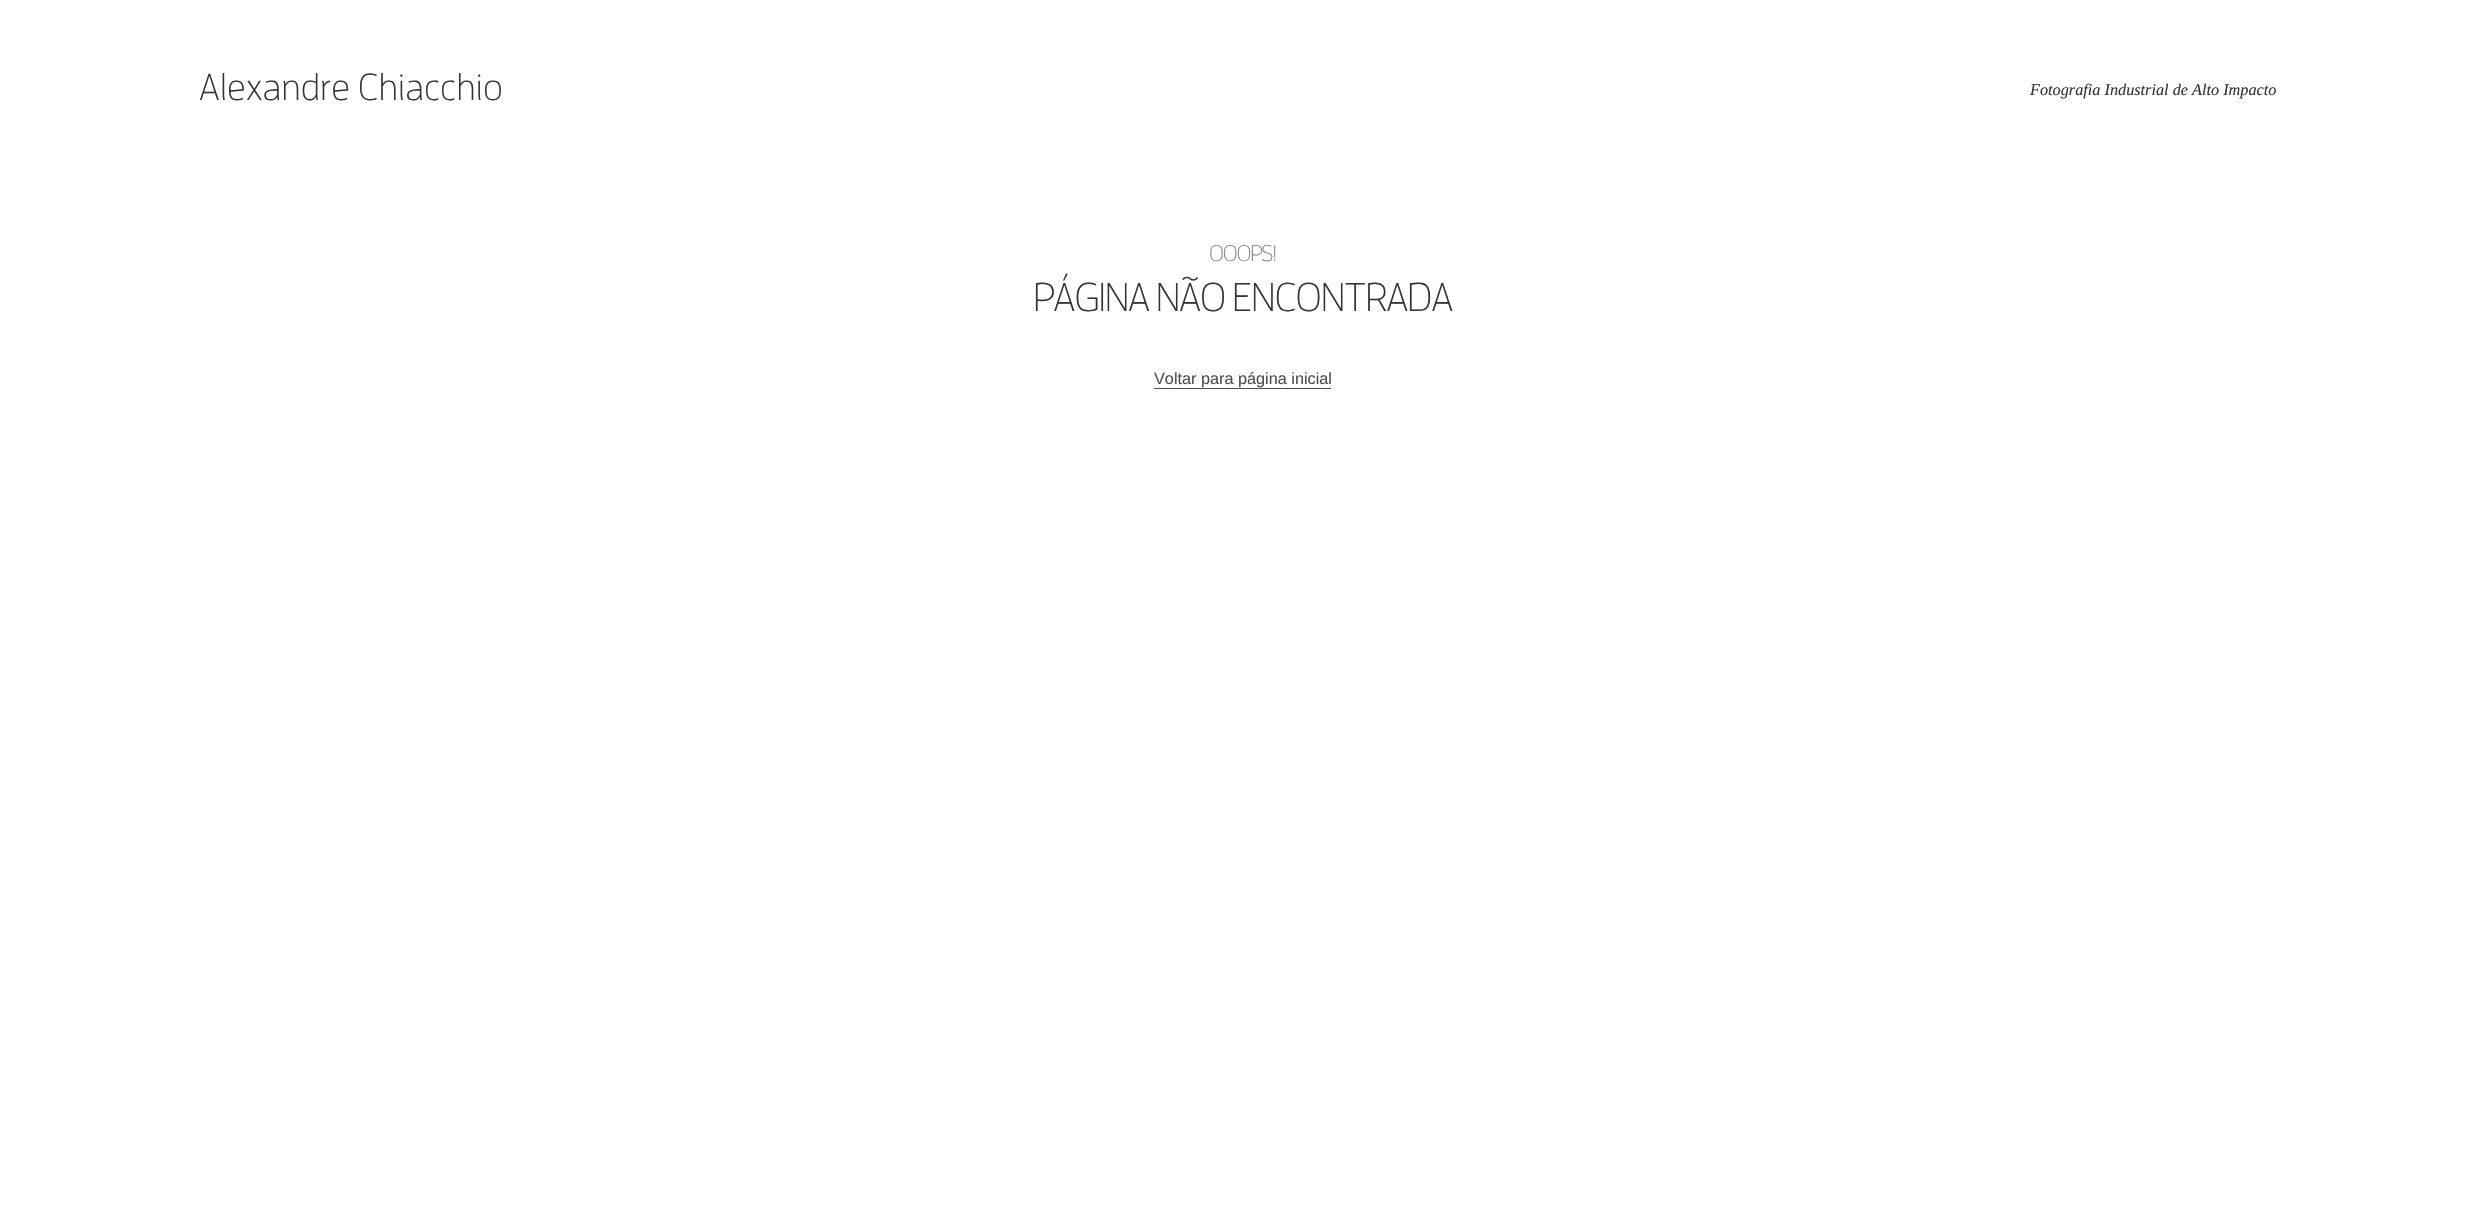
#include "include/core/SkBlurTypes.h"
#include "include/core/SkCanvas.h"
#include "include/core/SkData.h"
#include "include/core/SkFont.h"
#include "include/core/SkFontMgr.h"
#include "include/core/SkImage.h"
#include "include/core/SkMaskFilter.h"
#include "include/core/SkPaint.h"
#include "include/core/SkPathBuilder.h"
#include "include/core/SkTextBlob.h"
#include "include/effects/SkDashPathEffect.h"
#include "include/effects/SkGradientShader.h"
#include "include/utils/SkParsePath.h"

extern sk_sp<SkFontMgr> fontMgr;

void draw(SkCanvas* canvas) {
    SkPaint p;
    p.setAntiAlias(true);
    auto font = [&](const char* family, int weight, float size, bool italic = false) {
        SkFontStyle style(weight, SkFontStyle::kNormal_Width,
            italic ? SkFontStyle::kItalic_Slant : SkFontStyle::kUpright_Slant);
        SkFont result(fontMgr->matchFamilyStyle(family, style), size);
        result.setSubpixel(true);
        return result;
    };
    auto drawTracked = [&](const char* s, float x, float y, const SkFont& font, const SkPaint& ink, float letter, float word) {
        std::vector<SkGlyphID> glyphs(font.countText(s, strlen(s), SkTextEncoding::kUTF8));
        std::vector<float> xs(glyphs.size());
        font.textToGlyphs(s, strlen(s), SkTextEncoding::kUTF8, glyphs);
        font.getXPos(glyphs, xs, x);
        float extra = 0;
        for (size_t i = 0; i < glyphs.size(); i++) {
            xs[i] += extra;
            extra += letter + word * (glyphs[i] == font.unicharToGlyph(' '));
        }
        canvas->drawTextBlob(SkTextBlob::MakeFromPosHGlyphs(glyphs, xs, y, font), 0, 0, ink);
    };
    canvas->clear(0xFFFFFFFF);
    auto font1 = font("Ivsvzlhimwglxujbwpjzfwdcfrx", 400, 37.5f);
    p.setColor(0xFF333333);
    canvas->drawString("Alexandre Chiacchio", 199, 100, font1, p);
    auto font2 = font("Liberation Serif", 400, 16.25f, true);
    canvas->drawString("Fotografia Industrial de Alto Impacto", 2030, 95, font2, p);
    auto font3 = font("Ivsvzlhimwglxujbwpjzfwdcfrx", 400, 22.5f);
    p.setColor(0xFF808080);
    drawTracked("OOOPS!", 1209, 261, font3, p, -1.25f, 0);
    auto font4 = font("Ivsvzlhimwglxujbwpjzfwdcfrx", 400, 40);
    p.setColor(0xFF333333);
    drawTracked("PÁGINA NÃO ENCONTRADA", 1033, 311, font4, p, -1.25f, 0);
    auto font5 = font("Liberation Sans", 400, 16.25f);
    p.setColor(0xFF4D4D4D);
    canvas->drawString("Voltar para página inicial", 1154, 384, font5, p);
    canvas->drawRect(SkRect::MakeLTRB(1154, 388, 1331, 389), p);
}
